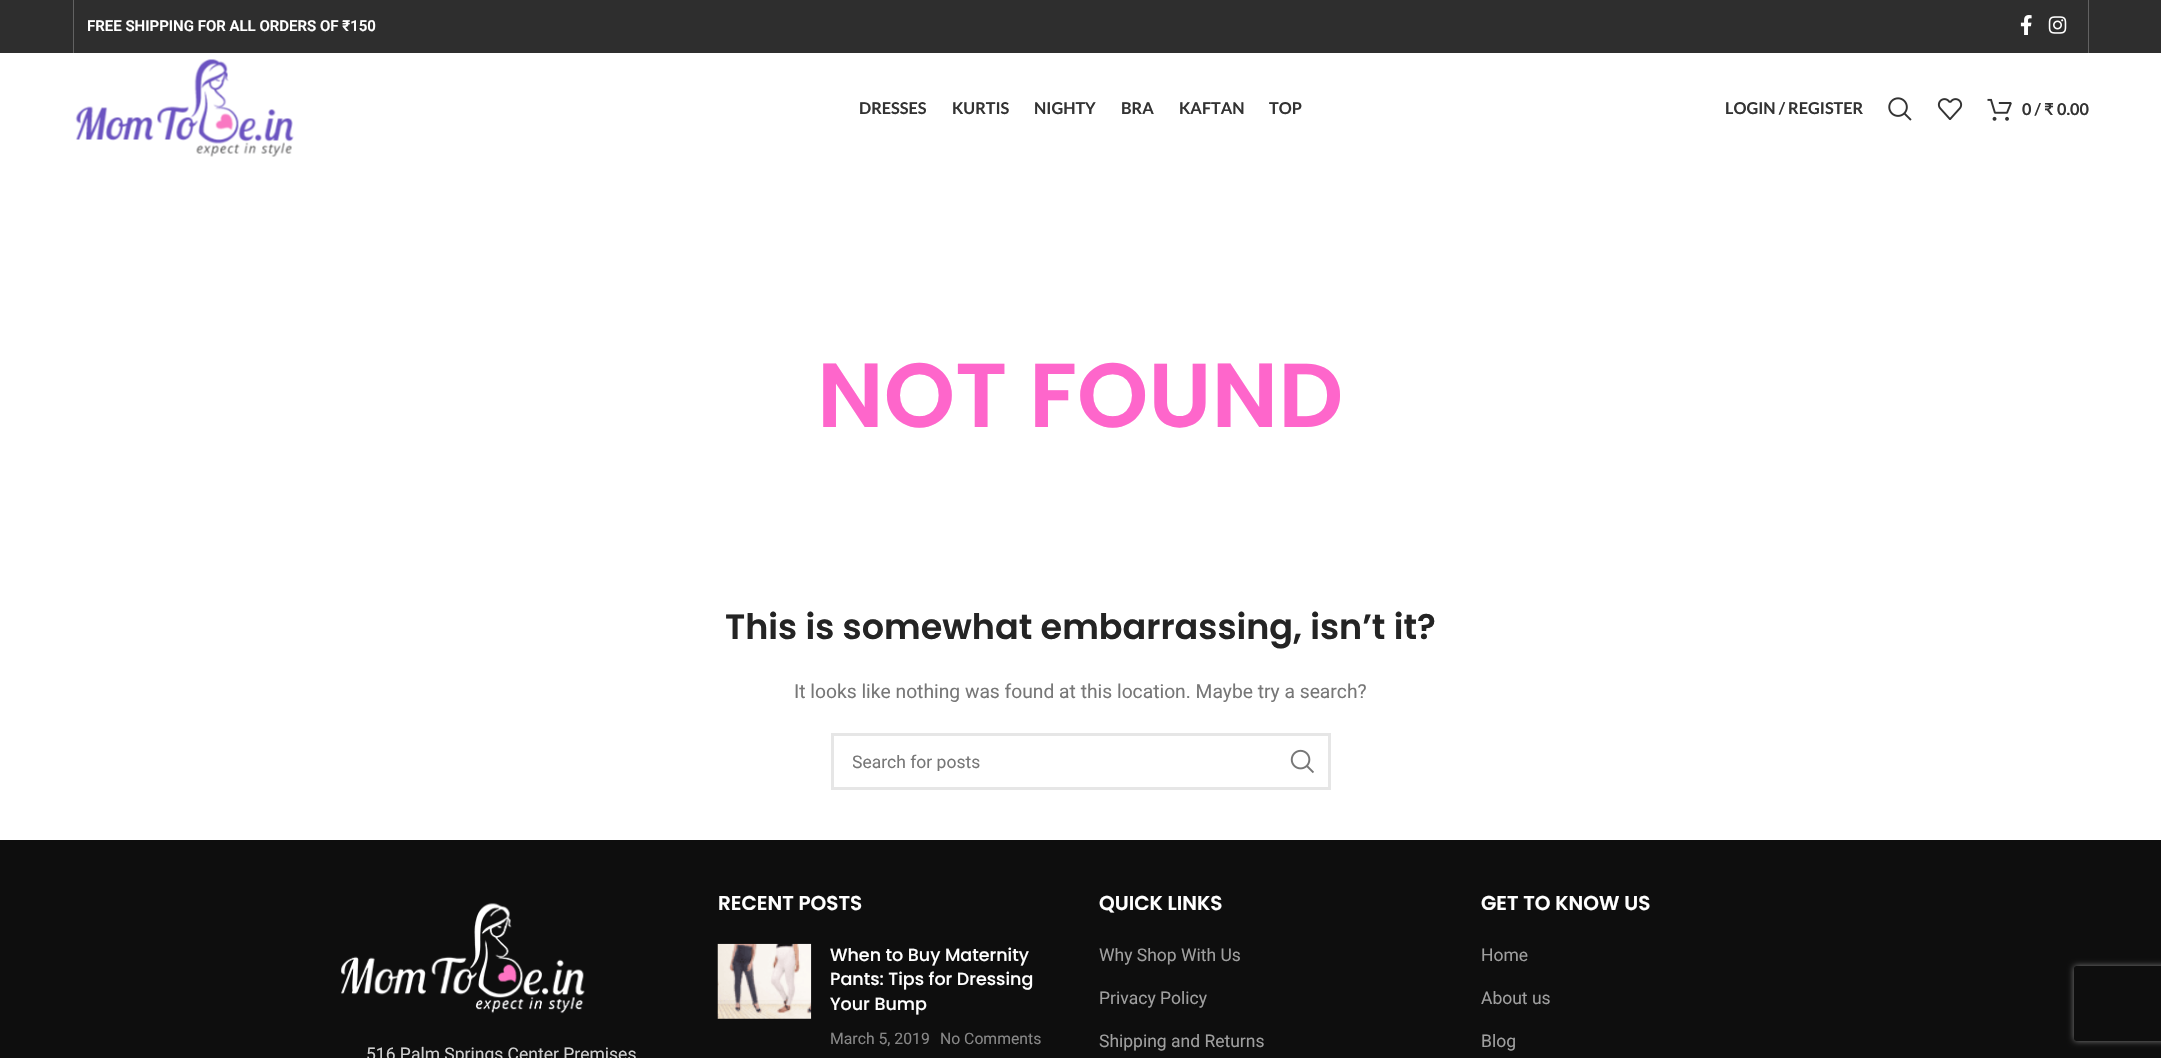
#include "include/core/SkBlurTypes.h"
#include "include/core/SkCanvas.h"
#include "include/core/SkData.h"
#include "include/core/SkFont.h"
#include "include/core/SkFontMgr.h"
#include "include/core/SkImage.h"
#include "include/core/SkMaskFilter.h"
#include "include/core/SkPaint.h"
#include "include/core/SkPathBuilder.h"
#include "include/core/SkTextBlob.h"
#include "include/effects/SkDashPathEffect.h"
#include "include/effects/SkGradientShader.h"
#include "include/utils/SkParsePath.h"

extern sk_sp<SkFontMgr> fontMgr;

void draw(SkCanvas* canvas) {
    SkPaint p;
    p.setAntiAlias(true);
    auto font = [&](const char* family, int weight, float size, bool italic = false) {
        SkFontStyle style(weight, SkFontStyle::kNormal_Width,
            italic ? SkFontStyle::kItalic_Slant : SkFontStyle::kUpright_Slant);
        SkFont result(fontMgr->matchFamilyStyle(family, style), size);
        result.setSubpixel(true);
        return result;
    };
    auto drawPhoto = [&](const char* path, float l, float t, float r, float b) {
        auto image = SkImages::DeferredFromEncodedData(SkData::MakeFromFileName(path));
        canvas->drawImageRect(image, SkRect::MakeLTRB(l, t, r, b), SkSamplingOptions());
    };
    canvas->clear(0xFFFFFFFF);
    p.setColor(0xFF2E2E2E);
    canvas->drawRect(SkRect::MakeLTRB(0, 0, 2161, 53), p);
    p.setColor(0xFF626262);
    canvas->drawRect(SkRect::MakeLTRB(73, 0, 74, 53), p);
    auto font1 = font("Roboto", 600, 15);
    p.setColor(0xFFFFFFFF);
    canvas->drawString("FREE SHIPPING FOR ALL ORDERS OF ₹150", 87, 31, font1, p);
    drawPhoto("media/1.png", 2020, 15, 2032, 35);
    drawPhoto("media/2.png", 2048, 16, 2067, 34);
    p.setColor(0xFF626262);
    canvas->drawRect(SkRect::MakeLTRB(2088, 0, 2089, 53), p);
    drawPhoto("media/3.png", 75, 59, 294, 157);
    auto font2 = font("Lato", 700, 16.25f);
    p.setColor(0xFF333333);
    {
        const struct { const char* s; float x, y; } items[] = {
            {"DRESSES", 859, 114},
            {"KURTIS", 952, 114},
            {"NIGHTY", 1034, 114},
            {"BRA", 1121, 114},
            {"KAFTAN", 1179, 114},
            {"TOP", 1269, 114},
            {"LOGIN / REGISTER", 1725, 114},
        };
        for (auto [s, x, y] : items) {
            canvas->drawString(s, x, y, font2, p);
        }
    }
    drawPhoto("media/4.png", 1888, 97, 1912, 121);
    drawPhoto("media/5.png", 1937, 98, 1963, 120);
    drawPhoto("media/6.png", 1987, 98, 2012, 121);
    canvas->drawString("0 /", 2022, 115, font2, p);
    auto font3 = font("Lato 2", 700, 16.25f);
    canvas->drawString("₹", 2044, 115, font3, p);
    canvas->drawString("0.00", 2057, 115, font2, p);
    auto font4 = font("Poppins", 600, 90.75f);
    p.setColor(0xFFFE66CB);
    canvas->drawString("NOT FOUND", 817, 427, font4, p);
    auto font5 = font("Poppins", 600, 35);
    p.setColor(0xFF242424);
    canvas->drawString("This is somewhat embarrassing, isn’t it?", 725, 639, font5, p);
    auto font6 = font("Roboto", 400, 19.25f);
    p.setColor(0xFF777777);
    canvas->drawString("It looks like nothing was found at this location. Maybe try a search?", 794, 698, font6, p);
    p.setStyle(SkPaint::kStroke_Style);
    p.setStrokeWidth(3);
    p.setColor(0xFFE6E6E6);
    canvas->drawRect(SkRect::MakeLTRB(832.5f, 734.5f, 1329.5f, 788.5f), p);
    canvas->save();
    canvas->clipRect(SkRect::MakeLTRB(853, 751, 1234, 771));
    auto font7 = font("Roboto", 400, 17.5f);
    p.setStyle(SkPaint::kFill_Style);
    p.setColor(0xFF777777);
    canvas->drawString("Search for posts", 852, 768, font7, p);
    canvas->restore();
    drawPhoto("media/7.png", 1290, 749, 1314, 774);
    p.setColor(0xFF0E0E0E);
    canvas->drawRect(SkRect::MakeLTRB(0, 840, 2161, 1058), p);
    drawPhoto("media/8.png", 341, 903, 585, 1014);
    p.setColor(0xFFCFCFCF);
    canvas->drawString("516 Palm Springs Center Premises", 366, 1060, font7, p);
    auto font8 = font("Poppins", 600, 20);
    p.setColor(0xFFFFFFFF);
    canvas->drawString("RECENT POSTS", 718, 910, font8, p);
    drawPhoto("media/9.png", 717, 943, 812, 1019);
    auto font9 = font("Poppins", 500, 17.5f);
    {
        const struct { const char* s; float x, y; } items[] = {
            {"When to Buy Maternity", 830, 961},
            {"Pants: Tips for Dressing", 830, 985},
            {"Your Bump", 830, 1010},
        };
        for (auto [s, x, y] : items) {
            canvas->drawString(s, x, y, font9, p);
        }
    }
    auto font10 = font("Roboto", 400, 15.75f);
    p.setColor(0xFF878787);
    canvas->drawString("March 5, 2019", 830, 1044, font10, p);
    canvas->drawString("No Comments", 940, 1044, font10, p);
    p.setColor(0xFFFFFFFF);
    canvas->drawString("QUICK LINKS", 1099, 910, font8, p);
    p.setColor(0xFF9F9F9F);
    {
        const struct { const char* s; float x, y; } items[] = {
            {"Why Shop With Us", 1099, 961},
            {"Privacy Policy", 1099, 1004},
            {"Shipping and Returns", 1099, 1047},
        };
        for (auto [s, x, y] : items) {
            canvas->drawString(s, x, y, font7, p);
        }
    }
    p.setColor(0xFFFFFFFF);
    canvas->drawString("GET TO KNOW US", 1481, 910, font8, p);
    p.setColor(0xFF9F9F9F);
    {
        const struct { const char* s; float x, y; } items[] = {
            {"Home", 1481, 961},
            {"About us", 1481, 1004},
            {"Blog", 1481, 1047},
        };
        for (auto [s, x, y] : items) {
            canvas->drawString(s, x, y, font7, p);
        }
    }
    canvas->save();
    canvas->clipPath(SkPathBuilder(SkPathFillType::kEvenOdd).moveTo(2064, 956).lineTo(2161, 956).lineTo(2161, 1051).lineTo(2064, 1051).close().moveTo(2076.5f, 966).lineTo(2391.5f, 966).cubicTo(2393, 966, 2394, 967, 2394, 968.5f).lineTo(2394, 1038.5f).cubicTo(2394, 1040, 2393, 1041, 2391.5f, 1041).lineTo(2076.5f, 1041).cubicTo(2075, 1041, 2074, 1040, 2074, 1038.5f).lineTo(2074, 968.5f).cubicTo(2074, 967, 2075, 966, 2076.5f, 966).close().detach(), true);
    p.setColor(0xFF808080);
    p.setMaskFilter(SkMaskFilter::MakeBlur(kNormal_SkBlurStyle, 3));
    canvas->drawRoundRect(SkRect::MakeLTRB(2074, 966, 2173, 1041), 2.5f, 2.5f, p);
    p.setMaskFilter(nullptr);
    canvas->restore();
}
